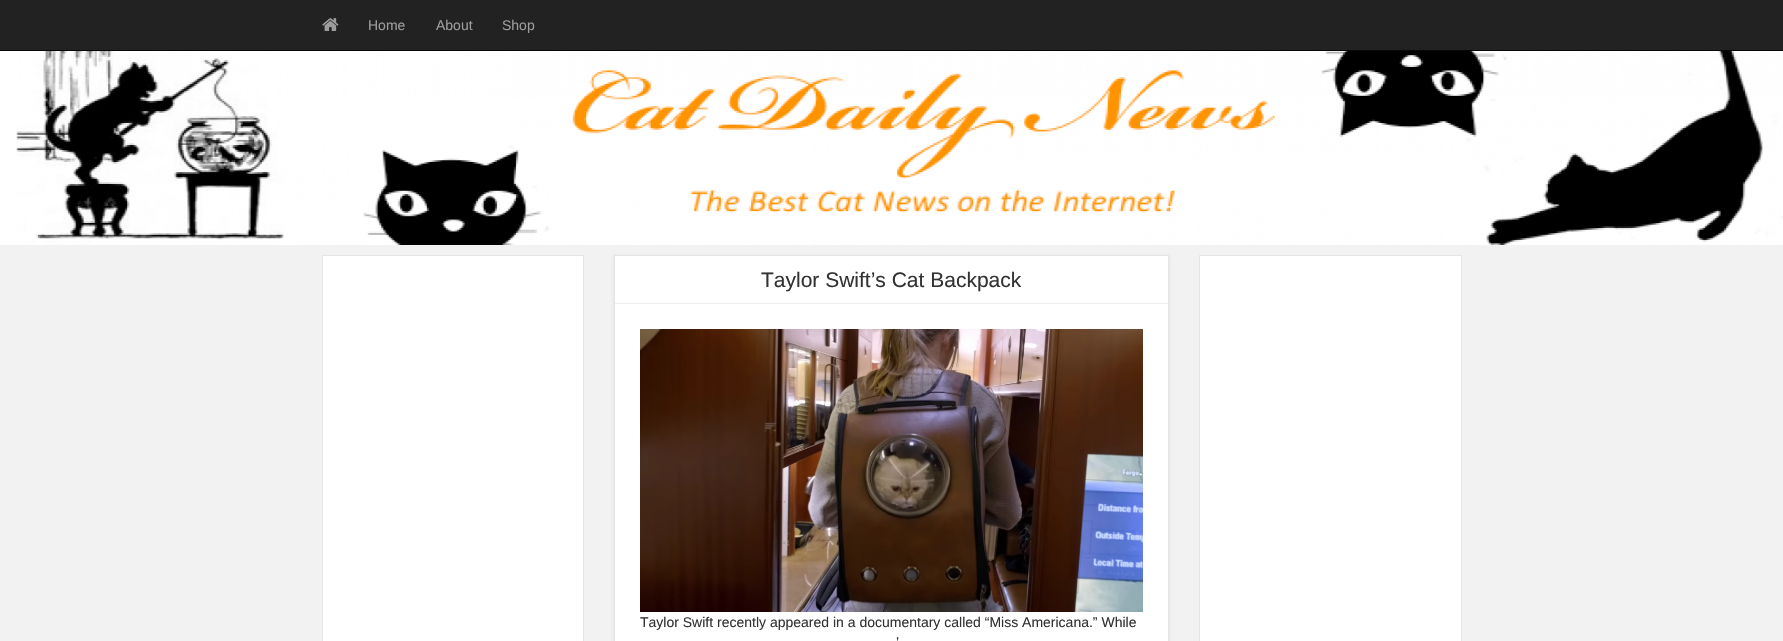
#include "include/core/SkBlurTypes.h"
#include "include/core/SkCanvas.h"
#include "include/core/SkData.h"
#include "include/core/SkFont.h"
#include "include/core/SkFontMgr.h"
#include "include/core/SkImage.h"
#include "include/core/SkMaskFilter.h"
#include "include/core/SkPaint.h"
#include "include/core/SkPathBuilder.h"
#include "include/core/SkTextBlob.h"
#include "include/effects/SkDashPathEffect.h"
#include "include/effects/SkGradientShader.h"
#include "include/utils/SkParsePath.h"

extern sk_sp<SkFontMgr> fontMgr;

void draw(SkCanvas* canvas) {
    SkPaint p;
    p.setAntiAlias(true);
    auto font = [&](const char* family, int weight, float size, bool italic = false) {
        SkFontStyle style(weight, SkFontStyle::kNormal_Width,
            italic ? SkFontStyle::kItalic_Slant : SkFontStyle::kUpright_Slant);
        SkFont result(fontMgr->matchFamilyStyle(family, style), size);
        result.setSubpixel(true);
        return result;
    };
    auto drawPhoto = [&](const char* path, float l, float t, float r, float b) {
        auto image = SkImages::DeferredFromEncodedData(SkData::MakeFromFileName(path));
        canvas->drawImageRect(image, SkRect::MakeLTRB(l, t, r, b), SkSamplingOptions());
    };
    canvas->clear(0xFFF2F2F2);
    p.setColor(0xFF222222);
    canvas->drawRect(SkRect::MakeLTRB(0, 0, 1783, 50), p);
    p.setColor(0xFF080808);
    canvas->drawRect(SkRect::MakeLTRB(0, 50, 1783, 51), p);
    drawPhoto("media/1.png", 322, 18, 339, 31);
    auto font1 = font("Liberation Sans", 400, 14);
    p.setColor(0xFF9D9D9D);
    {
        const struct { const char* s; float x, y; } items[] = {
            {"Home", 368, 30},
            {"About", 436, 30},
            {"Shop", 502, 30},
        };
        for (auto [s, x, y] : items) {
            canvas->drawString(s, x, y, font1, p);
        }
    }
    drawPhoto("media/2.png", 0, 51, 1783, 245);
    p.setColor(0xFFFFFFFF);
    canvas->drawRect(SkRect::MakeLTRB(322.5f, 255.5f, 583.5f, 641.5f), p);
    p.setStyle(SkPaint::kStroke_Style);
    p.setStrokeWidth(1);
    p.setColor(0xFFE5E5E5);
    canvas->drawRect(SkRect::MakeLTRB(322.5f, 255.5f, 583.5f, 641.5f), p);
    p.setStyle(SkPaint::kFill_Style);
    p.setColor(0x14000000);
    p.setMaskFilter(SkMaskFilter::MakeBlur(kNormal_SkBlurStyle, 1.5f));
    canvas->drawRect(SkRect::MakeLTRB(614, 256, 1169, 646), p);
    p.setMaskFilter(nullptr);
    p.setColor(0xFFFFFFFF);
    canvas->drawRect(SkRect::MakeLTRB(614.5f, 255.5f, 1168.5f, 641.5f), p);
    p.setStyle(SkPaint::kStroke_Style);
    p.setColor(0xFFE5E5E5);
    canvas->drawRect(SkRect::MakeLTRB(614.5f, 255.5f, 1168.5f, 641.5f), p);
    p.setStyle(SkPaint::kFill_Style);
    p.setColor(0xFFEEEEEE);
    canvas->drawRect(SkRect::MakeLTRB(615, 303, 1168, 304), p);
    auto font2 = font("Liberation Sans", 400, 21);
    p.setColor(0xFF333333);
    canvas->drawString("Taylor Swift’s Cat Backpack", 761, 287, font2, p);
    drawPhoto("media/3.png", 640, 329, 1143, 612);
    canvas->drawString("Taylor Swift recently appeared in a documentary called “Miss Americana.” While", 640, 627, font1, p);
    canvas->drawString("’", 896, 647, font1, p);
    p.setColor(0xFFFFFFFF);
    canvas->drawRect(SkRect::MakeLTRB(1199.5f, 255.5f, 1461.5f, 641.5f), p);
    p.setStyle(SkPaint::kStroke_Style);
    p.setColor(0xFFE5E5E5);
    canvas->drawRect(SkRect::MakeLTRB(1199.5f, 255.5f, 1461.5f, 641.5f), p);
}
